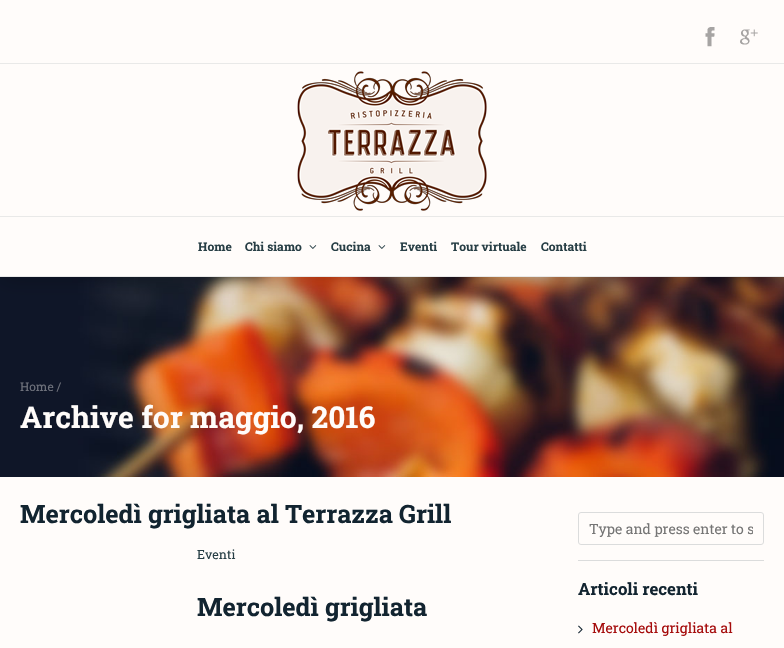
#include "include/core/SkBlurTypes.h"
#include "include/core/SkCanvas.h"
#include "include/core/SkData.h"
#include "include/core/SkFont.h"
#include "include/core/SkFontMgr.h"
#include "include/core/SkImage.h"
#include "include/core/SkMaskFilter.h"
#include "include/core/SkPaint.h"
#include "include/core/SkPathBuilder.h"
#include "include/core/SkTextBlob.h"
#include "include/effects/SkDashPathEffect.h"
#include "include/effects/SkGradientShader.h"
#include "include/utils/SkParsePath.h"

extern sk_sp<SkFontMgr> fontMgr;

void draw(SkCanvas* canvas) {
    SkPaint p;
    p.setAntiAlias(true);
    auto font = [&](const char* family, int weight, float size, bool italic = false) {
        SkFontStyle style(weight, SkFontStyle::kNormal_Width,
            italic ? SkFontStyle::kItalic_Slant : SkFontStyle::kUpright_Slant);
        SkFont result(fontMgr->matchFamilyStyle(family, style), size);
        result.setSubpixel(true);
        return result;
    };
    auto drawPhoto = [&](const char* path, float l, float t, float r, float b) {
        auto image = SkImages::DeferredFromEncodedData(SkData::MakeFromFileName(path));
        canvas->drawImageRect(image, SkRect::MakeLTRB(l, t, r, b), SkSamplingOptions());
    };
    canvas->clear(0xFFFFFCFA);
    p.setColor(0xFFE9E9E8);
    canvas->drawRect(SkRect::MakeLTRB(0, 63, 784, 64), p);
    drawPhoto("media/1.png", 705, 27, 715, 47);
    drawPhoto("media/2.png", 740, 29, 758, 45);
    canvas->drawRect(SkRect::MakeLTRB(0, 216, 784, 217), p);
    drawPhoto("media/3.png", 297, 71, 487, 211);
    canvas->drawRect(SkRect::MakeLTRB(0, 276, 784, 277), p);
    auto font1 = font("Roboto Slab", 700, 12);
    p.setColor(0xFF273E45);
    canvas->drawString("Home", 198, 251, font1, p);
    canvas->drawString("Chi siamo", 245, 251, font1, p);
    drawPhoto("media/4.png", 309, 245, 317, 249);
    canvas->drawString("Cucina", 331, 251, font1, p);
    drawPhoto("media/4.png", 378, 245, 386, 249);
    {
        const struct { const char* s; float x, y; } items[] = {
            {"Eventi", 400, 251},
            {"Tour virtuale", 451, 251},
            {"Contatti", 541, 251},
        };
        for (auto [s, x, y] : items) {
            canvas->drawString(s, x, y, font1, p);
        }
    }
    drawPhoto("media/5.png", 0, 277, 784, 477);
    canvas->save();
    canvas->clipRect(SkRect::MakeLTRB(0, 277, 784, 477));
    p.setColor(0x40000000);
    p.setMaskFilter(SkMaskFilter::MakeBlur(kNormal_SkBlurStyle, 10));
    canvas->drawRoundRect(SkRect::MakeLTRB(0, 259, 784, 279), 10, 10, p);
    p.setMaskFilter(nullptr);
    canvas->restore();
    auto font2 = font("Roboto Slab", 400, 12);
    p.setColor(0xFF6F727C);
    canvas->drawString("Home /", 20, 391, font2, p);
    auto font3 = font("Roboto Slab", 700, 30);
    p.setColor(0xFFFFFCFA);
    canvas->drawString("Archive for maggio, 2016", 20, 428, font3, p);
    auto font4 = font("Roboto Slab", 700, 25.25f);
    p.setColor(0xFF122430);
    canvas->drawString("Mercoledì grigliata al Terrazza Grill", 20, 523, font4, p);
    auto font5 = font("Roboto Slab", 400, 12.5f);
    p.setColor(0xFF273E45);
    canvas->drawString("Eventi", 197, 559, font5, p);
    p.setColor(0xFF122430);
    canvas->drawString("Mercoledì grigliata", 197, 616, font4, p);
    p.setColor(0xFFDBDCDC);
    canvas->drawRect(SkRect::MakeLTRB(578, 560, 764, 561), p);
    p.setStyle(SkPaint::kStroke_Style);
    p.setStrokeWidth(1);
    canvas->drawRoundRect(SkRect::MakeLTRB(578.5f, 512.5f, 763.5f, 544.5f), 2.5f, 2.5f, p);
    canvas->save();
    canvas->clipRect(SkRect::MakeLTRB(589, 519, 753, 538));
    auto font6 = font("Roboto Slab", 400, 14);
    p.setStyle(SkPaint::kFill_Style);
    p.setColor(0xFF757575);
    canvas->drawString("Type and press enter to s", 589, 534, font6, p);
    canvas->restore();
    auto font7 = font("Roboto Slab", 700, 16.75f);
    p.setColor(0xFF122430);
    canvas->drawString("Articoli recenti", 578, 595, font7, p);
    drawPhoto("media/6.png", 578, 625, 583, 634);
    p.setColor(0xFFA50B0B);
    canvas->drawString("Mercoledì grigliata al", 592, 633, font6, p);
}
